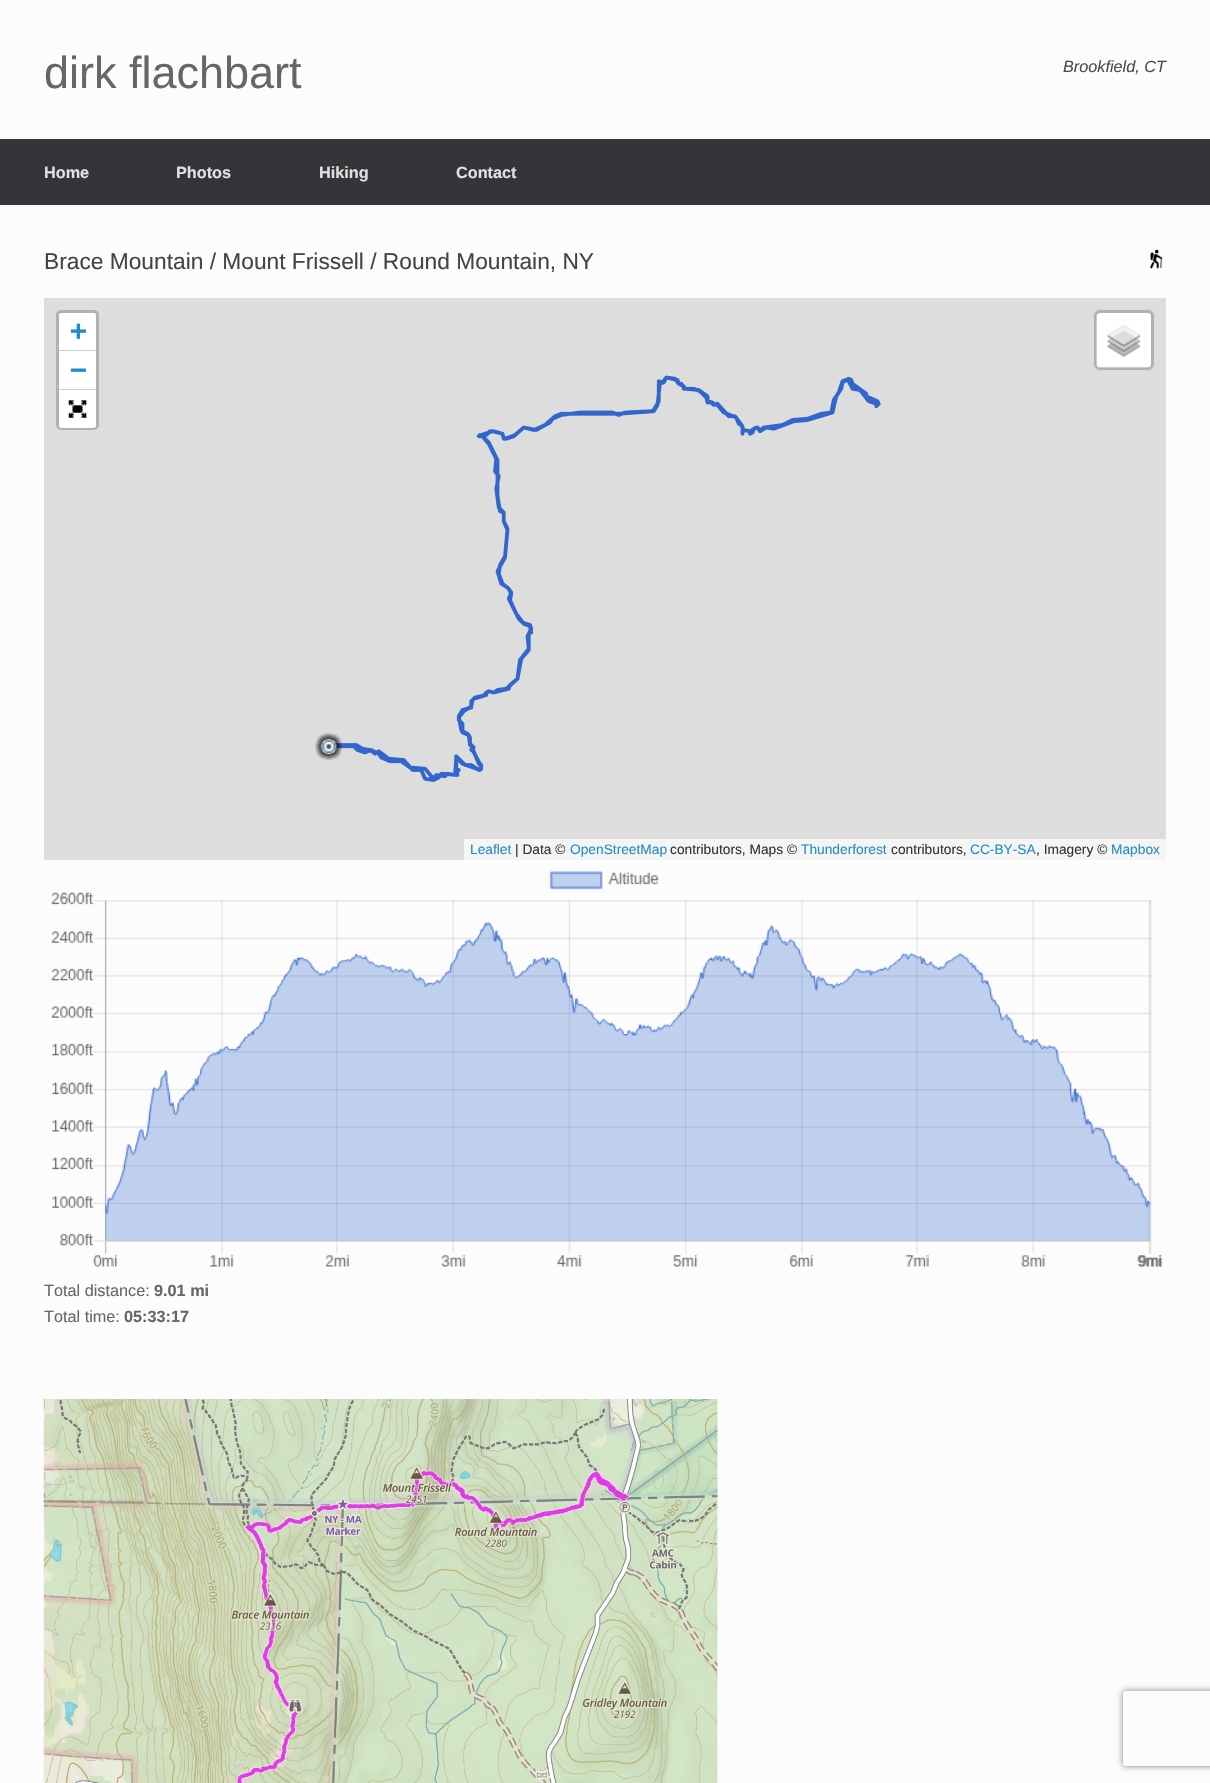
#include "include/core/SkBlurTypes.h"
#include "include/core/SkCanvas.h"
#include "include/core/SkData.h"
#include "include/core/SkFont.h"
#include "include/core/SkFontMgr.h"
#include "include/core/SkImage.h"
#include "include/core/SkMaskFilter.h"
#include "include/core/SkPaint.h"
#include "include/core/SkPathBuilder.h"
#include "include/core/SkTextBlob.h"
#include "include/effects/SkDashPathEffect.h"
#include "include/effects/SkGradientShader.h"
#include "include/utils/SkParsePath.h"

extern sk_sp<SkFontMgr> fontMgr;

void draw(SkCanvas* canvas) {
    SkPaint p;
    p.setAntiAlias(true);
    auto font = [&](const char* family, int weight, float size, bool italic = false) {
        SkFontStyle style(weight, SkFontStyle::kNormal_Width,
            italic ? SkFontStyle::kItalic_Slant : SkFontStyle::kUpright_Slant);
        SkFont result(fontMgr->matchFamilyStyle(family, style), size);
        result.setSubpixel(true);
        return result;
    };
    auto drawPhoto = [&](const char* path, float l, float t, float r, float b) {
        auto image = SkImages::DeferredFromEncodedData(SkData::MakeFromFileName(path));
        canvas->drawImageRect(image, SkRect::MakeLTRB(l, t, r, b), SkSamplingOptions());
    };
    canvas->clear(0xFFFCFCFC);
    auto font1 = font("Liberation Sans", 400, 45);
    p.setColor(0xFF666666);
    canvas->drawString("dirk flachbart", 44, 88, font1, p);
    auto font2 = font("Liberation Sans", 400, 16.25f, true);
    p.setColor(0xFF4B4B4B);
    canvas->drawString("Brookfield, CT", 1063, 72, font2, p);
    p.setColor(0xFF343538);
    canvas->drawRect(SkRect::MakeLTRB(0, 139, 1210, 205), p);
    auto font3 = font("Liberation Sans", 700, 16.25f);
    p.setColor(0xFFE2E2E2);
    {
        const struct { const char* s; float x, y; } items[] = {
            {"Home", 44, 178},
            {"Photos", 176, 178},
            {"Hiking", 319, 178},
            {"Contact", 456, 178},
        };
        for (auto [s, x, y] : items) {
            canvas->drawString(s, x, y, font3, p);
        }
    }
    auto font4 = font("Liberation Sans", 400, 22.75f);
    p.setColor(0xFF444444);
    canvas->drawString("Brace Mountain / Mount Frissell / Round Mountain, NY", 44, 269, font4, p);
    drawPhoto("media/1.png", 1150, 249, 1163, 269);
    p.setColor(0xFFDDDDDD);
    canvas->drawRect(SkRect::MakeLTRB(44, 298, 1166, 860), p);
    p.setStyle(SkPaint::kStroke_Style);
    p.setStrokeWidth(3);
    p.setColor(0xFFB1B1B1);
    canvas->drawRoundRect(SkRect::MakeLTRB(57.5f, 311.5f, 97.5f, 428.5f), 3.5f, 3.5f, p);
    p.setStyle(SkPaint::kFill_Style);
    p.setColor(0xFFFFFFFF);
    canvas->drawPath(SkPathBuilder().moveTo(61.5f, 313).lineTo(93.5f, 313).cubicTo(95, 313, 96, 314, 96, 315.5f).lineTo(96, 351).lineTo(59, 351).lineTo(59, 315.5f).cubicTo(59, 314, 60, 313, 61.5f, 313).close().detach(), p);
    p.setColor(0xFFCCCCCC);
    canvas->drawRect(SkRect::MakeLTRB(59, 350, 96, 351), p);
    auto font5 = font("DejaVu Sans Mono", 700, 28);
    p.setColor(0xFF248CC8);
    canvas->drawString("+", 70, 340, font5, p);
    p.setColor(0xFFFFFFFF);
    canvas->drawRect(SkRect::MakeLTRB(59, 351, 96, 389), p);
    p.setColor(0xFFCCCCCC);
    canvas->drawRect(SkRect::MakeLTRB(59, 389, 96, 390), p);
    p.setColor(0xFF248CC8);
    canvas->drawString("−", 70, 379, font5, p);
    p.setColor(0xFFFFFFFF);
    canvas->drawPath(SkPathBuilder().moveTo(59, 390).lineTo(96, 390).lineTo(96, 425.5f).cubicTo(96, 427, 95, 428, 93.5f, 428).lineTo(61.5f, 428).cubicTo(60, 428, 59, 427, 59, 425.5f).close().detach(), p);
    drawPhoto("media/2.png", 68, 400, 87, 418);
    canvas->drawRoundRect(SkRect::MakeLTRB(1096, 313, 1151, 368), 4, 4, p);
    p.setStyle(SkPaint::kStroke_Style);
    p.setColor(0x33000000);
    canvas->drawRoundRect(SkRect::MakeLTRB(1095.5f, 311.5f, 1152.5f, 368.5f), 4.5f, 4.5f, p);
    drawPhoto("media/3.png", 1107, 325, 1140, 357);
    p.setStyle(SkPaint::kFill_Style);
    p.setColor(0xFFF5F5F5);
    canvas->drawRect(SkRect::MakeLTRB(464, 839, 1166, 860), p);
    auto font6 = font("Liberation Sans", 400, 13.75f);
    p.setColor(0xFF248CC8);
    canvas->drawString("Leaflet", 470, 854, font6, p);
    p.setColor(0xFF333333);
    canvas->drawString("| Data ©", 515, 854, font6, p);
    p.setColor(0xFF248CC8);
    canvas->drawString("OpenStreetMap", 570, 854, font6, p);
    p.setColor(0xFF333333);
    canvas->drawString("contributors, Maps ©", 670, 854, font6, p);
    p.setColor(0xFF248CC8);
    canvas->drawString("Thunderforest", 801, 854, font6, p);
    p.setColor(0xFF333333);
    canvas->drawString("contributors,", 891, 854, font6, p);
    p.setColor(0xFF248CC8);
    canvas->drawString("CC-BY-SA", 970, 854, font6, p);
    p.setColor(0xFF333333);
    canvas->drawString(", Imagery ©", 1036, 854, font6, p);
    p.setColor(0xFF248CC8);
    canvas->drawString("Mapbox", 1111, 854, font6, p);
    drawPhoto("media/5.png", 331, 375, 881, 782);
    drawPhoto("media/4.png", 315, 732, 343, 761);
    drawPhoto("media/6.png", 51, 871, 1163, 1267);
    auto font7 = font("Liberation Sans", 400, 16.25f);
    p.setColor(0xFF666666);
    canvas->drawString("Total distance:", 44, 1296, font7, p);
    canvas->drawString("9.01 mi", 154, 1296, font3, p);
    canvas->drawString("Total time:", 44, 1322, font7, p);
    canvas->drawString("05:33:17", 124, 1322, font3, p);
    drawPhoto("media/7.png", 43, 1399, 718, 1783);
    canvas->save();
    canvas->clipPath(SkPathBuilder(SkPathFillType::kEvenOdd).moveTo(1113, 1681).lineTo(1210, 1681).lineTo(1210, 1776).lineTo(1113, 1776).close().moveTo(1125.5f, 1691).lineTo(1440.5f, 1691).cubicTo(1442, 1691, 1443, 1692, 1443, 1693.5f).lineTo(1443, 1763.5f).cubicTo(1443, 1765, 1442, 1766, 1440.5f, 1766).lineTo(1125.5f, 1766).cubicTo(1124, 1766, 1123, 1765, 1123, 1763.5f).lineTo(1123, 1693.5f).cubicTo(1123, 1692, 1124, 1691, 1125.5f, 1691).close().detach(), true);
    p.setColor(0xFF808080);
    p.setMaskFilter(SkMaskFilter::MakeBlur(kNormal_SkBlurStyle, 3));
    canvas->drawRoundRect(SkRect::MakeLTRB(1123, 1691, 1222, 1766), 2.5f, 2.5f, p);
    p.setMaskFilter(nullptr);
    canvas->restore();
}
